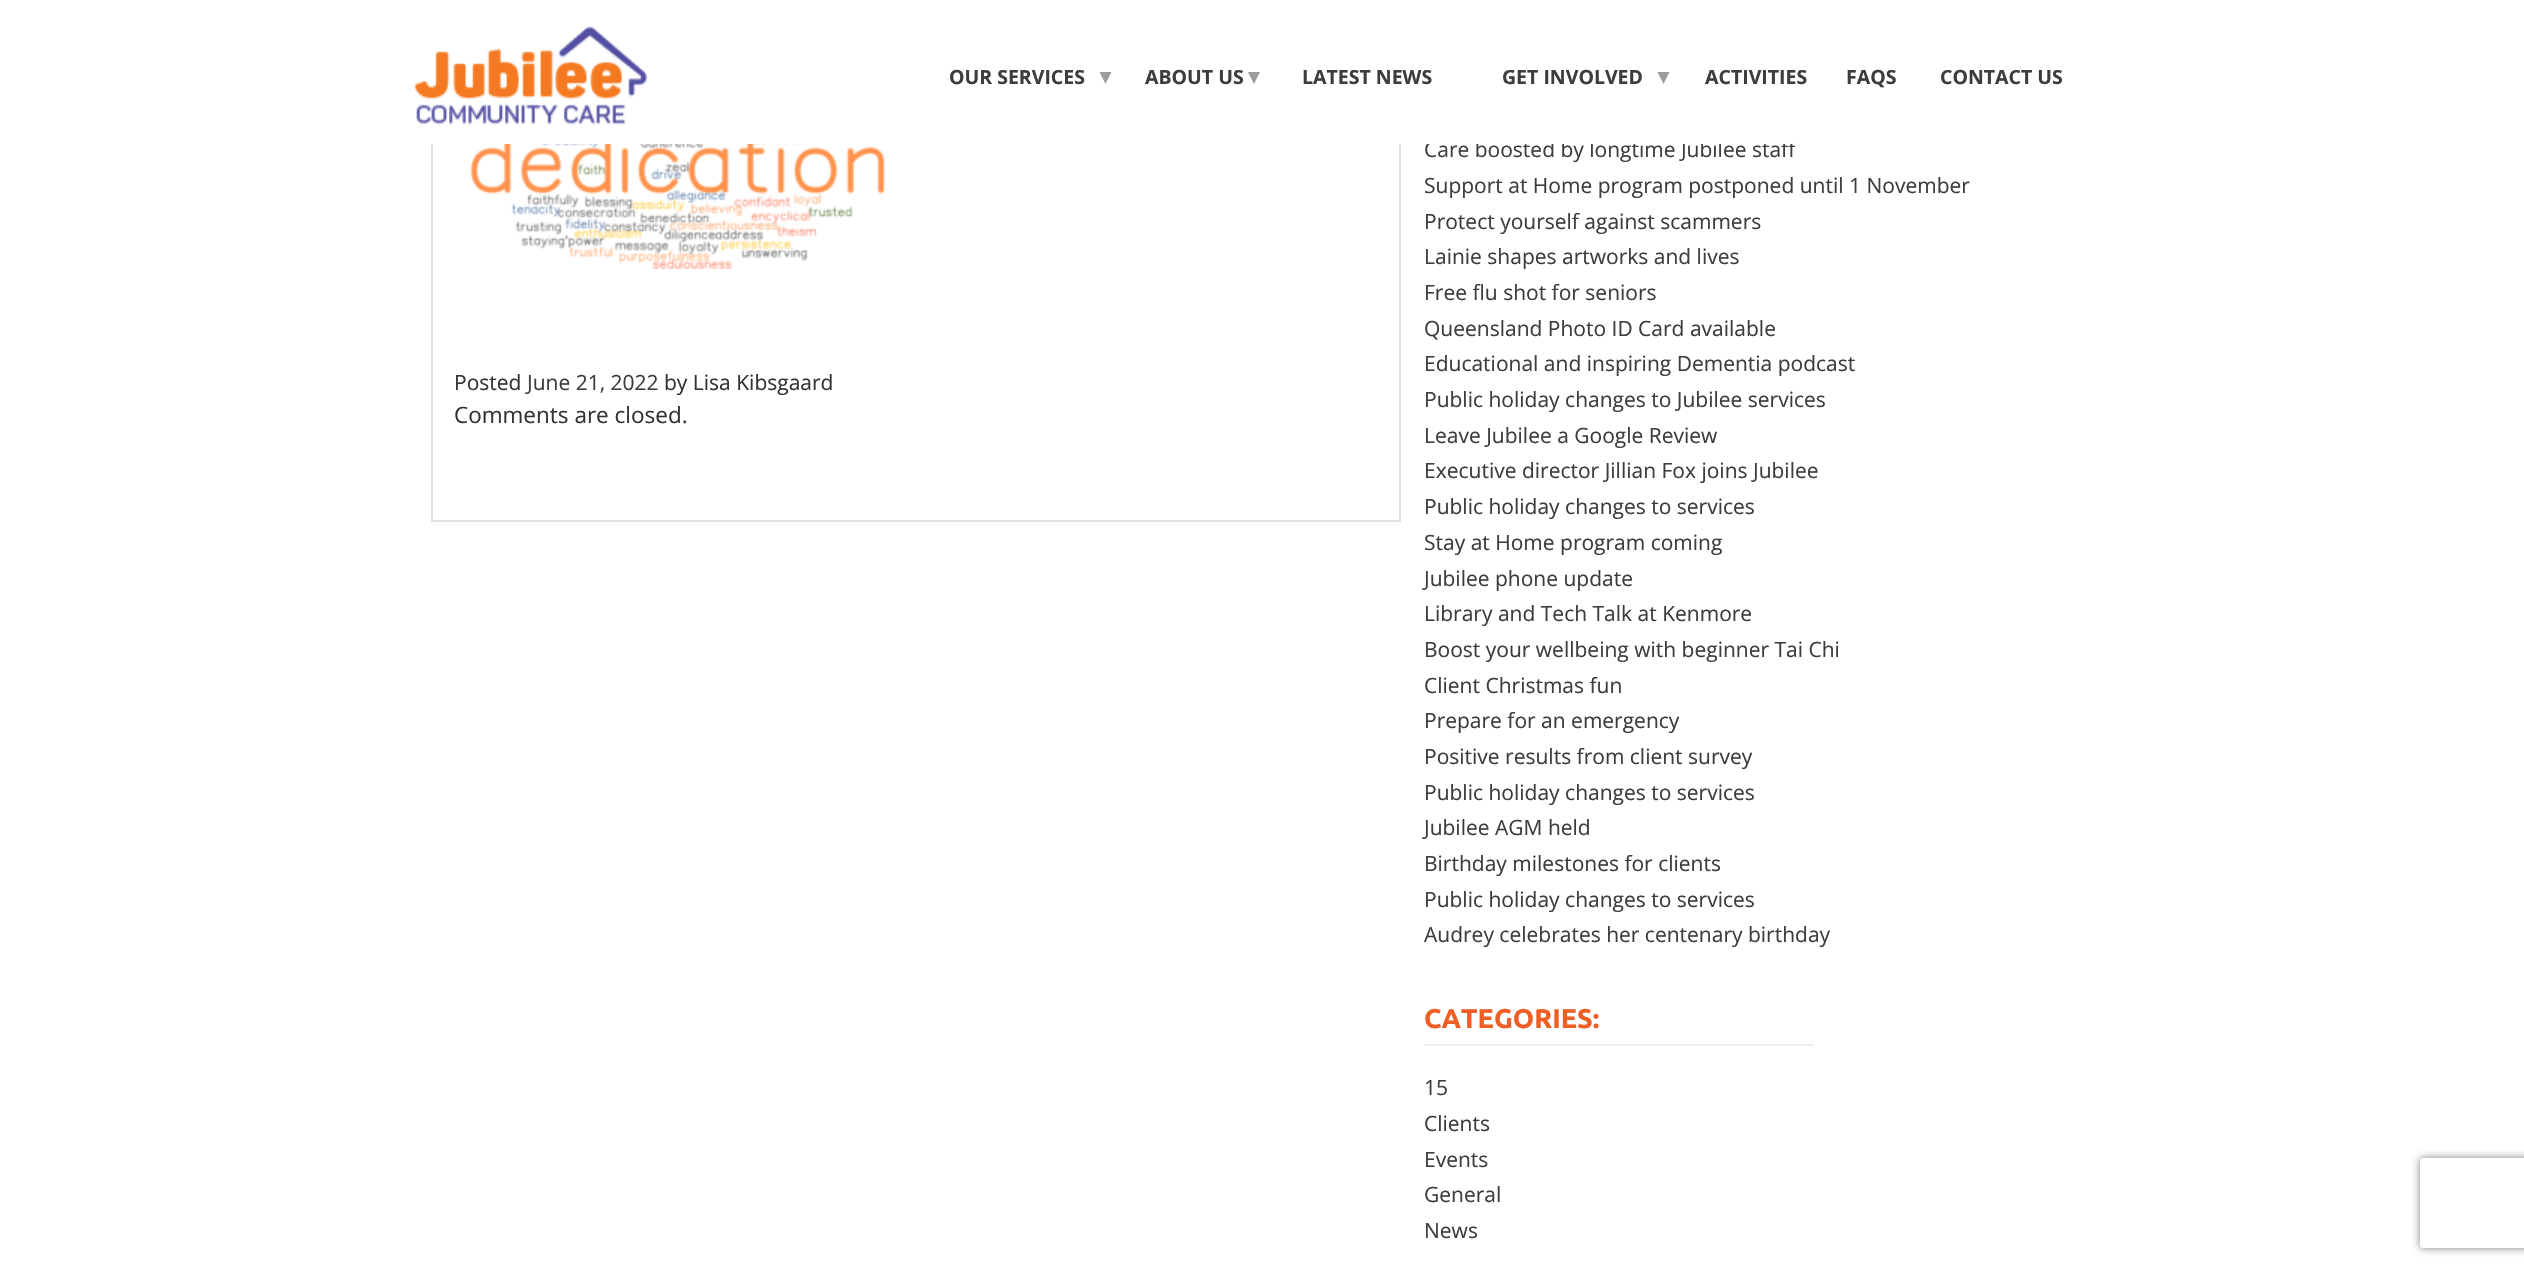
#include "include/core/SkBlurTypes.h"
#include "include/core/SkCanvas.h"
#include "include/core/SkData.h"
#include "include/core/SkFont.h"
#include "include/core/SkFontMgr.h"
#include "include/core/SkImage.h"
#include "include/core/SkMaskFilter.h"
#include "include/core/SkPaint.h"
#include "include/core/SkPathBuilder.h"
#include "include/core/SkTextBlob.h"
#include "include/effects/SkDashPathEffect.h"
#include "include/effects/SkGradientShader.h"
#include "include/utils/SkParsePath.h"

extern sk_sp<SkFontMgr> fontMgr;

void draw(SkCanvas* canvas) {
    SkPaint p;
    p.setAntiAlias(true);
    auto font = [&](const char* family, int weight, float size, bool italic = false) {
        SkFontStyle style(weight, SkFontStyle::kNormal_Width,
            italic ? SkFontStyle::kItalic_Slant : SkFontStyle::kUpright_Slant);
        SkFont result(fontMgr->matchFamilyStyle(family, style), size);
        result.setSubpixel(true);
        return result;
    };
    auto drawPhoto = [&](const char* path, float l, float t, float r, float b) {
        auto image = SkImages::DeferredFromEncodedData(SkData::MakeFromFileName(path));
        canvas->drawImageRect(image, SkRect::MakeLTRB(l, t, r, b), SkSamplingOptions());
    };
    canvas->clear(0xFFFFFFFF);
    p.setStyle(SkPaint::kStroke_Style);
    p.setStrokeWidth(2);
    p.setColor(0xFFE1E1E1);
    canvas->drawRect(SkRect::MakeLTRB(432, -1, 1400, 521), p);
    auto font1 = font("Open Sans", 400, 21);
    p.setStyle(SkPaint::kFill_Style);
    p.setColor(0xFF3D3D3F);
    canvas->drawString("Care boosted by longtime Jubilee staff", 1424, 157, font1, p);
    p.setColor(0xFFFFFFFF);
    canvas->drawRect(SkRect::MakeLTRB(431, 0, 1796, 144), p);
    drawPhoto("media/1.png", 413, 26, 648, 125);
    auto font2 = font("Open Sans", 700, 19.5f);
    p.setColor(0xFF3D3D3F);
    canvas->drawString("OUR SERVICES", 949, 84, font2, p);
    p.setColor(0xFF9C9C9C);
    canvas->drawPath(SkPathBuilder().moveTo(1099.5f, 72).lineTo(1111.5f, 72).lineTo(1105.5f, 84).close().detach(), p);
    p.setColor(0xFF3D3D3F);
    canvas->drawString("ABOUT US", 1145, 84, font2, p);
    p.setColor(0xFF9C9C9C);
    canvas->drawPath(SkPathBuilder().moveTo(1248, 72).lineTo(1260, 72).lineTo(1254, 84).close().detach(), p);
    p.setColor(0xFF3D3D3F);
    canvas->drawString("LATEST NEWS", 1302, 84, font2, p);
    canvas->drawString("GET INVOLVED", 1502, 84, font2, p);
    p.setColor(0xFF9C9C9C);
    canvas->drawPath(SkPathBuilder().moveTo(1657.5f, 72).lineTo(1669.5f, 72).lineTo(1663.5f, 84).close().detach(), p);
    p.setColor(0xFF3D3D3F);
    {
        const struct { const char* s; float x, y; } items[] = {
            {"ACTIVITIES", 1705, 84},
            {"FAQS", 1846, 84},
            {"CONTACT US", 1940, 84},
        };
        for (auto [s, x, y] : items) {
            canvas->drawString(s, x, y, font2, p);
        }
    }
    drawPhoto("media/2.png", 470, 144, 886, 270);
    p.setColor(0xFF333333);
    canvas->drawString("Posted", 454, 390, font1, p);
    p.setColor(0xFF3D3D3F);
    canvas->drawString("June 21, 2022", 527, 390, font1, p);
    p.setColor(0xFF333333);
    canvas->drawString("by Lisa Kibsgaard", 664, 390, font1, p);
    auto font3 = font("Open Sans", 400, 22.5f);
    canvas->drawString("Comments are closed.", 454, 423, font3, p);
    p.setColor(0xFF3D3D3F);
    {
        const struct { const char* s; float x, y; } items[] = {
            {"Support at Home program postponed until 1 November", 1424, 193},
            {"Protect yourself against scammers", 1424, 229},
            {"Lainie shapes artworks and lives", 1424, 264},
            {"Free flu shot for seniors", 1424, 300},
            {"Queensland Photo ID Card available", 1424, 336},
            {"Educational and inspiring Dementia podcast", 1424, 371},
            {"Public holiday changes to Jubilee services", 1424, 407},
            {"Leave Jubilee a Google Review", 1424, 443},
            {"Executive director Jillian Fox joins Jubilee", 1424, 478},
            {"Public holiday changes to services", 1424, 514},
            {"Stay at Home program coming", 1424, 550},
            {"Jubilee phone update", 1424, 586},
            {"Library and Tech Talk at Kenmore", 1424, 621},
            {"Boost your wellbeing with beginner Tai Chi", 1424, 657},
            {"Client Christmas fun", 1424, 693},
            {"Prepare for an emergency", 1424, 728},
            {"Positive results from client survey", 1424, 764},
            {"Public holiday changes to services", 1424, 800},
            {"Jubilee AGM held", 1424, 835},
            {"Birthday milestones for clients", 1424, 871},
            {"Public holiday changes to services", 1424, 907},
            {"Audrey celebrates her centenary birthday", 1424, 942},
        };
        for (auto [s, x, y] : items) {
            canvas->drawString(s, x, y, font1, p);
        }
    }
    p.setColor(0xFFEEEEEE);
    canvas->drawRect(SkRect::MakeLTRB(1424, 1044, 1814, 1046), p);
    auto font4 = font("Ubuntu", 700, 27);
    p.setColor(0xFFEE5F25);
    canvas->drawString("CATEGORIES:", 1424, 1028, font4, p);
    p.setColor(0xFF3D3D3F);
    {
        const struct { const char* s; float x, y; } items[] = {
            {"15", 1424, 1095},
            {"Clients", 1424, 1131},
            {"Events", 1424, 1167},
            {"General", 1424, 1202},
            {"News", 1424, 1238},
        };
        for (auto [s, x, y] : items) {
            canvas->drawString(s, x, y, font1, p);
        }
    }
    canvas->save();
    canvas->clipPath(SkPathBuilder(SkPathFillType::kEvenOdd).moveTo(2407, 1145).lineTo(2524, 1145).lineTo(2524, 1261).lineTo(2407, 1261).close().moveTo(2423, 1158).lineTo(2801, 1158).cubicTo(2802.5f, 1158, 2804, 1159.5f, 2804, 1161).lineTo(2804, 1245).cubicTo(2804, 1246.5f, 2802.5f, 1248, 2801, 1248).lineTo(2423, 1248).cubicTo(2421.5f, 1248, 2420, 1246.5f, 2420, 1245).lineTo(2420, 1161).cubicTo(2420, 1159.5f, 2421.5f, 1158, 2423, 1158).close().detach(), true);
    p.setColor(0xFF808080);
    p.setMaskFilter(SkMaskFilter::MakeBlur(kNormal_SkBlurStyle, 4));
    canvas->drawRoundRect(SkRect::MakeLTRB(2420, 1158, 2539, 1248), 3, 3, p);
    p.setMaskFilter(nullptr);
    canvas->restore();
}
